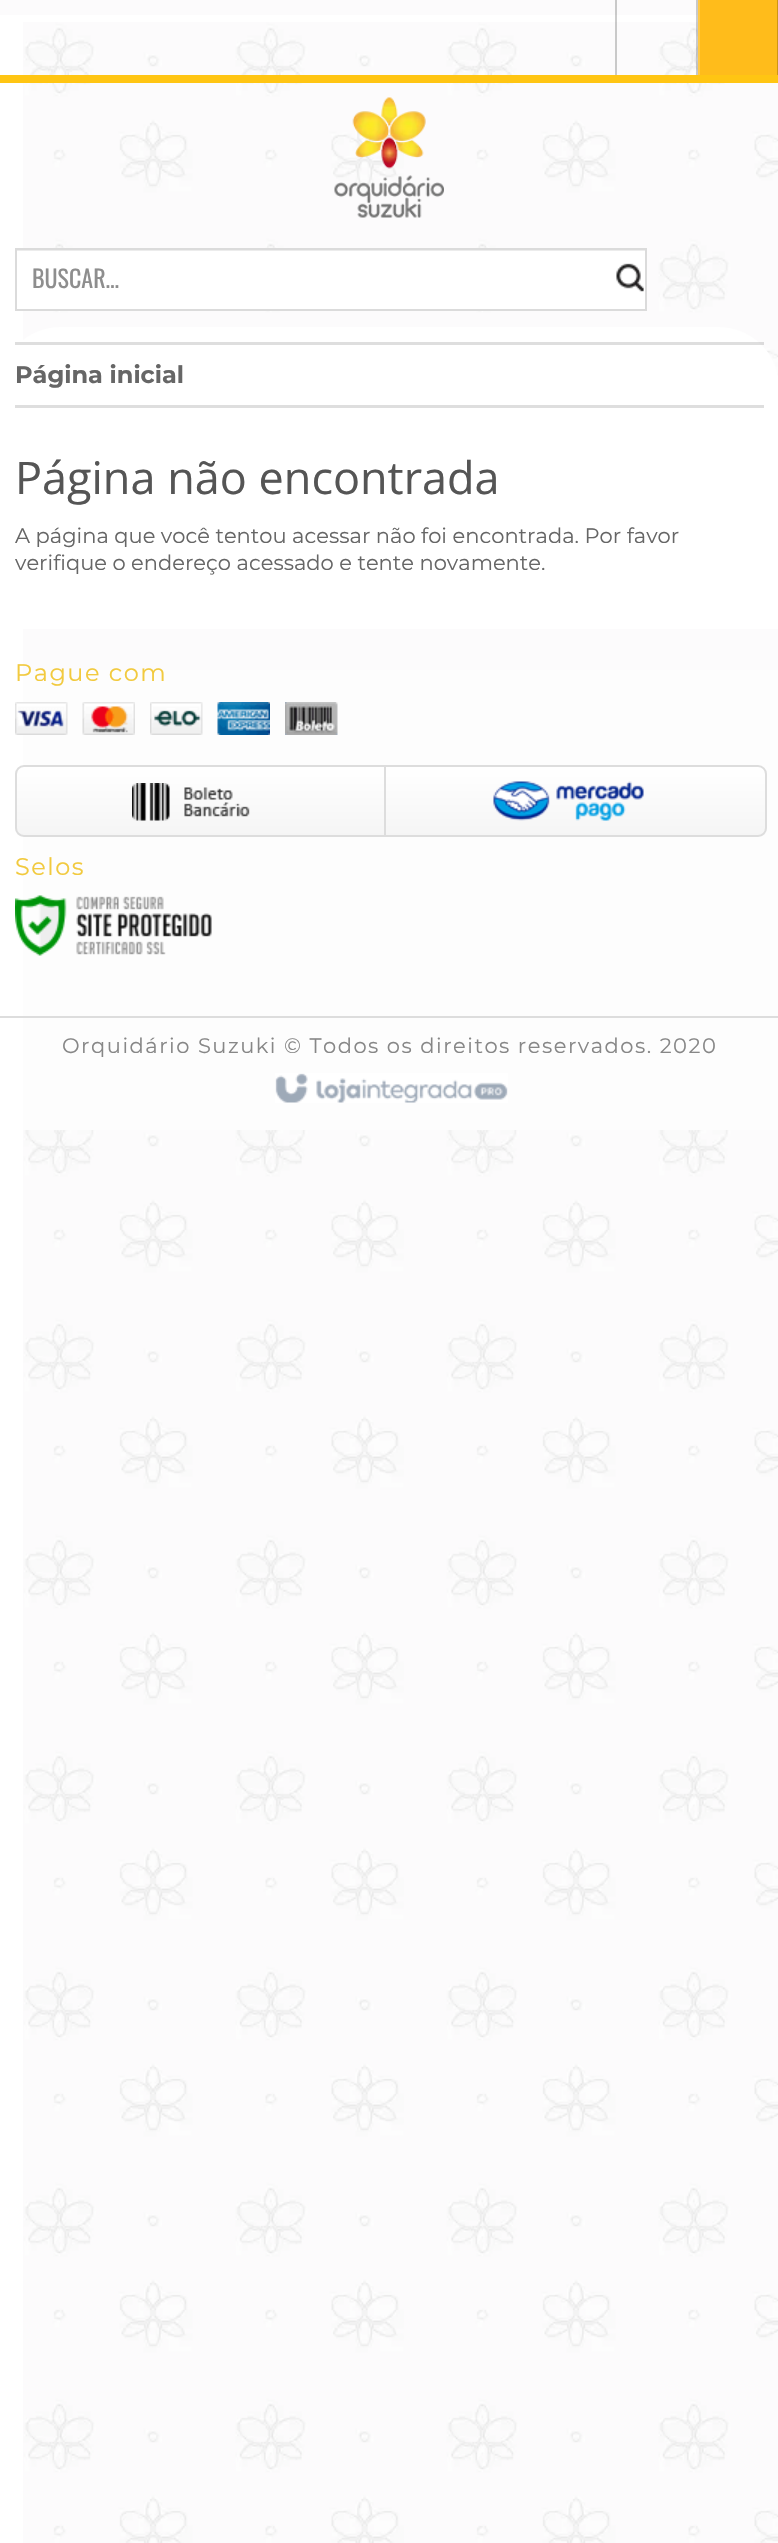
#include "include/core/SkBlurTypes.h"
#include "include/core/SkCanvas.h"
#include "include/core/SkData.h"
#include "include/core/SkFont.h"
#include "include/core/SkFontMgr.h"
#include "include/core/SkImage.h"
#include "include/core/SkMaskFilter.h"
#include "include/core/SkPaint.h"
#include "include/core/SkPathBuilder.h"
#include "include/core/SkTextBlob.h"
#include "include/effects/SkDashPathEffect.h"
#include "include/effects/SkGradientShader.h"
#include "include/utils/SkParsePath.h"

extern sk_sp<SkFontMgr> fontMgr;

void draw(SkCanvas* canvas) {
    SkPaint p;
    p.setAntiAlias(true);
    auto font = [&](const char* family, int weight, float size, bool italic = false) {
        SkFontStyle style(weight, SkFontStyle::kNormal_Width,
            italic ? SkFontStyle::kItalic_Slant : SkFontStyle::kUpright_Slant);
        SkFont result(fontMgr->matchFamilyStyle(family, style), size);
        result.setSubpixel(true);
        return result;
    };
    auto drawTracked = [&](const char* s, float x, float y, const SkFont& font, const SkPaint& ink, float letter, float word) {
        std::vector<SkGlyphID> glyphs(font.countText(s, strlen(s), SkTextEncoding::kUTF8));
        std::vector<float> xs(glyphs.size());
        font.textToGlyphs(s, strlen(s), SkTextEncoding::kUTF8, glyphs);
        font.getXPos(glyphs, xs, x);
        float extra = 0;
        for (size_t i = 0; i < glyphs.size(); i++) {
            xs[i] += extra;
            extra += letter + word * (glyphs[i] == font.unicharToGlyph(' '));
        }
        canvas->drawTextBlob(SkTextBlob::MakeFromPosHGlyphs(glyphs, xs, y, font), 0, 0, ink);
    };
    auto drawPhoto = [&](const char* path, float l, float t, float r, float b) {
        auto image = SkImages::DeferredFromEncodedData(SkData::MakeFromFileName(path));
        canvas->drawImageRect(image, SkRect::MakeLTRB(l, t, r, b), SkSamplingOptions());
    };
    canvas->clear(0xFFFFFFFF);
    drawPhoto("media/1.png", 23, 22, 778, 2543);
    {
        const struct { float l, t, r, b; SkColor color; } items[] = {
            {0, 0, 698, 15, 0xFFFCFBFC},
            {0, 75, 778, 83, 0xFFFFC513},
            {615, 0, 617, 75, 0x33000000},
            {696, 0, 698, 75, 0x33000000},
            {700, 0, 777, 75, 0xFFFFBC1B},
            {777, 0, 778, 75, 0xFFCC9616},
            {698, 0, 700, 75, 0xFFFFC949},
        };
        for (auto [l, t, r, b, color] : items) {
            p.setColor(color);
            canvas->drawRect(SkRect::MakeLTRB(l, t, r, b), p);
        }
    }
    drawPhoto("media/2.png", 334, 97, 444, 218);
    p.setColor(0xFFFFFFFF);
    canvas->drawRect(SkRect::MakeLTRB(23, 251, 645, 309), p);
    p.setColor(0xFFECECEC);
    canvas->drawRect(SkRect::MakeLTRB(17, 250, 645, 251), p);
    p.setStyle(SkPaint::kStroke_Style);
    p.setStrokeWidth(2);
    p.setColor(0xFFDBDBDB);
    canvas->drawRect(SkRect::MakeLTRB(16, 249, 646, 310), p);
    auto font1 = font("Oswald", 400, 24);
    p.setStyle(SkPaint::kFill_Style);
    p.setColor(0xFF8E8E8E);
    canvas->drawString("BUSCAR...", 32, 288, font1, p);
    drawPhoto("media/3.png", 616, 263, 644, 292);
    p.setColor(0xFFFFFFFF);
    canvas->drawPath(SkPathBuilder().moveTo(60, 327).lineTo(719, 327).cubicTo(752, 327, 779, 354, 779, 387).lineTo(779, 629).lineTo(0, 629).lineTo(0, 387).cubicTo(0, 354, 27, 327, 60, 327).close().detach(), p);
    p.setColor(0x21000000);
    canvas->drawRect(SkRect::MakeLTRB(15, 342, 764, 345), p);
    p.setColor(0xFFDEDEDE);
    canvas->drawRect(SkRect::MakeLTRB(15, 405, 764, 408), p);
    auto font2 = font("Montserrat", 700, 24);
    p.setColor(0xFF666666);
    canvas->drawString("Página inicial", 15, 383, font2, p);
    auto font3 = font("Open Sans", 400, 45);
    p.setColor(0xFF555555);
    canvas->drawString("Página não encontrada", 15, 494, font3, p);
    auto font4 = font("Montserrat", 400, 21);
    p.setColor(0xFF666666);
    canvas->drawString("A página que você tentou acessar não foi encontrada. Por favor", 15, 543, font4, p);
    canvas->drawString("verifique o endereço acessado e tente novamente.", 15, 570, font4, p);
    p.setColor(0xFFFDFDFD);
    canvas->drawRect(SkRect::MakeLTRB(23, 670, 778, 1016), p);
    auto font5 = font("Montserrat", 400, 24);
    p.setColor(0xFFF2CA3E);
    drawTracked("Pague com", 15, 681, font5, p, 1.5f, 0);
    drawPhoto("media/4.png", 15, 702, 68, 735);
    drawPhoto("media/5.png", 82, 702, 135, 735);
    drawPhoto("media/6.png", 150, 702, 203, 735);
    drawPhoto("media/7.png", 217, 702, 270, 735);
    drawPhoto("media/8.png", 285, 702, 338, 735);
    canvas->save();
    canvas->clipPath(SkPathBuilder().moveTo(24, 765).lineTo(758, 765).cubicTo(763, 765, 767, 769, 767, 774).lineTo(767, 828).cubicTo(767, 833, 763, 837, 758, 837).lineTo(24, 837).cubicTo(19, 837, 15, 833, 15, 828).lineTo(15, 774).cubicTo(15, 769, 19, 765, 24, 765).close().detach(), true);
    {
        const SkColor colors[] = {0xFFFFFFFF, 0xFFF5F5F5};
        const float stops[] = {0, 1};
        const SkPoint ends[] = {{391, 766}, {391, 836}};
        p.setShader(SkGradientShader::MakeLinear(ends, colors, stops, 2, SkTileMode::kClamp));
        p.setAlpha(255);
    }
    canvas->drawRect(SkRect::MakeLTRB(15, 767, 767, 836), p);
    canvas->restore();
    p.setStyle(SkPaint::kStroke_Style);
    p.setShader(nullptr);
    p.setColor(0xFFDDDDDD);
    canvas->drawRoundRect(SkRect::MakeLTRB(16, 766, 766, 836), 8, 8, p);
    drawPhoto("media/9.png", 132, 783, 250, 821);
    p.setStyle(SkPaint::kFill_Style);
    canvas->drawRect(SkRect::MakeLTRB(384, 767, 386, 836), p);
    drawPhoto("media/10.png", 493, 781, 644, 821);
    p.setColor(0xFFF2CA3E);
    drawTracked("Selos", 15, 875, font5, p, 1.5f, 0);
    drawPhoto("media/11.png", 15, 895, 212, 956);
    p.setColor(0xFFFDFDFD);
    canvas->drawRect(SkRect::MakeLTRB(23, 1018, 778, 1130), p);
    p.setColor(0xFFDDDDDD);
    canvas->drawRect(SkRect::MakeLTRB(0, 1016, 778, 1018), p);
    p.setColor(0xFF878787);
    drawTracked("Orquidário Suzuki © Todos os direitos reservados. 2020", 62, 1053, font4, p, 1.5f, 0);
    drawPhoto("media/12.png", 275, 1073, 508, 1103);
}
